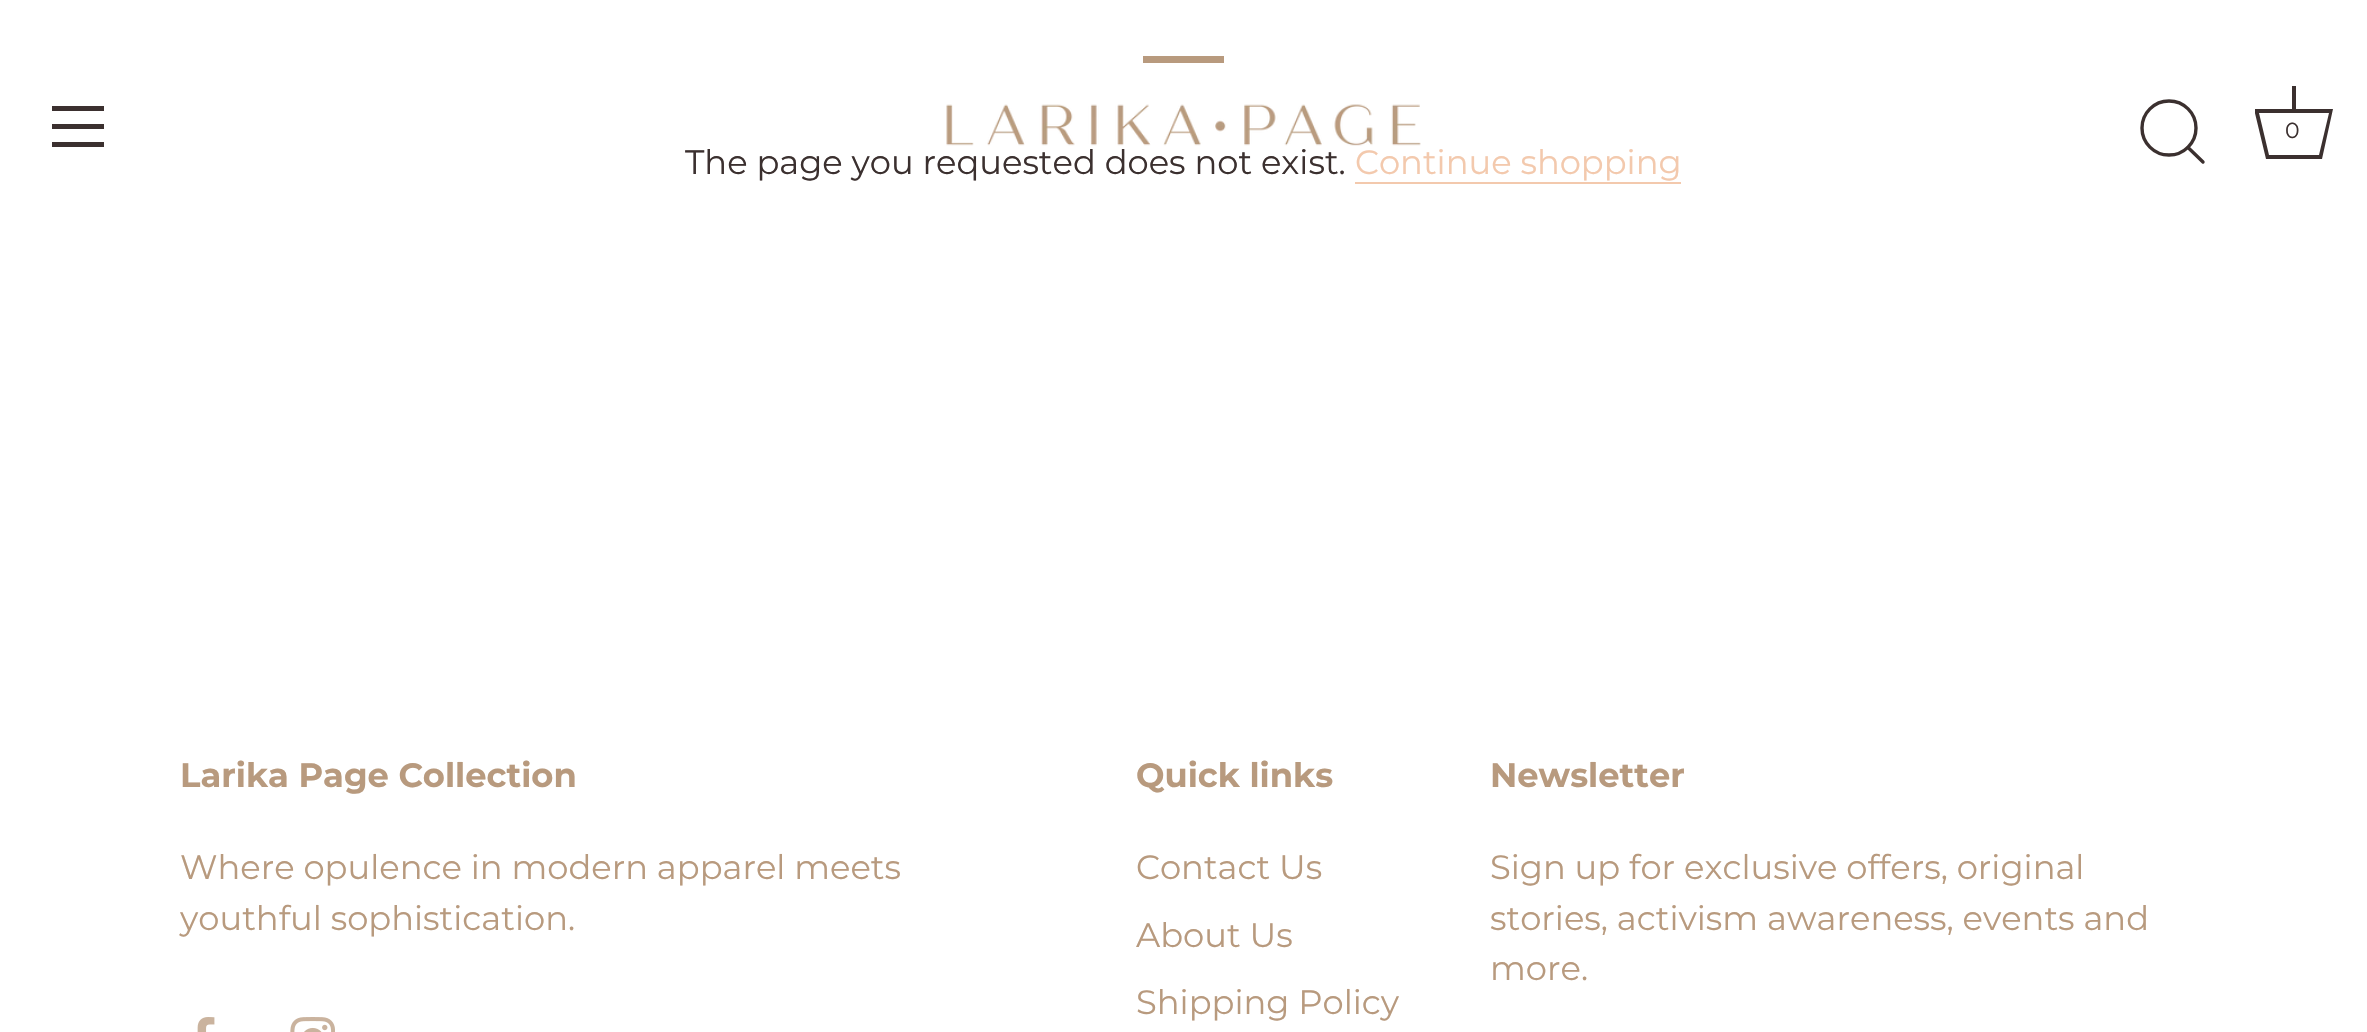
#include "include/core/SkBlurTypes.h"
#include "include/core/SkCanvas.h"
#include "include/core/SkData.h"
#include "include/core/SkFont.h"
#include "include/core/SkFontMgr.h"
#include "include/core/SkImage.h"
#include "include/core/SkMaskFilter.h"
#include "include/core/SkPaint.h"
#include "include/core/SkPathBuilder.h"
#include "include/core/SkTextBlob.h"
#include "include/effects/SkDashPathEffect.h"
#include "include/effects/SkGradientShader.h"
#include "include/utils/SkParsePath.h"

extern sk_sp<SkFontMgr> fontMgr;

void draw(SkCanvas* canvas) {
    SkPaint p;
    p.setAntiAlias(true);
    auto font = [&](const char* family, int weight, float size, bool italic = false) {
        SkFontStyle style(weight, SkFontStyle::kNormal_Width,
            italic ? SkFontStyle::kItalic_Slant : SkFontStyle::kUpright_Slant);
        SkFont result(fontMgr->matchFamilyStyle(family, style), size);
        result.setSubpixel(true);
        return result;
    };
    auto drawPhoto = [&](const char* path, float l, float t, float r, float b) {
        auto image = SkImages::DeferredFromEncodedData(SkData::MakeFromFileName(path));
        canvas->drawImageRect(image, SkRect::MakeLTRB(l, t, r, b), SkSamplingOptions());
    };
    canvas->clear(0xFFFFFFFF);
    {
        const struct { float l, t, r, b; SkColor color; } items[] = {
            {52, 106, 104, 111, 0xFF3B302F},
            {52, 124, 104, 129, 0xFF3B302F},
            {52, 142, 104, 147, 0xFF3B302F},
        };
        for (auto [l, t, r, b, color] : items) {
            p.setColor(color);
            canvas->drawRect(SkRect::MakeLTRB(l, t, r, b), p);
        }
    }
    drawPhoto("media/1.png", 946, 104, 1421, 146);
    p.setStyle(SkPaint::kStroke_Style);
    p.setStrokeWidth(3.4f);
    canvas->drawCircle(2169, 128, 27, p);
    p.setStrokeCap(SkPaint::kRound_Cap);
    p.setStrokeJoin(SkPaint::kRound_Join);
    canvas->drawPath(SkPathBuilder().moveTo(2203, 162).lineTo(2188, 147.5f).detach(), p);
    p.setStyle(SkPaint::kFill_Style);
    canvas->drawRect(SkRect::MakeLTRB(2292, 86, 2296, 109), p);
    canvas->save();
    canvas->clipRect(SkRect::MakeLTRB(2255, 83, 2333, 162));
    canvas->drawPath(SkPathBuilder().moveTo(2329, 113).lineTo(2319, 155).lineTo(2269, 155).lineTo(2259, 113).lineTo(2329, 113).moveTo(2333, 109).lineTo(2254, 109).lineTo(2266, 159).lineTo(2322, 159).close().detach(), p);
    canvas->restore();
    auto font1 = font("Montserrat", 400, 22);
    canvas->drawString("0", 2285, 138, font1, p);
    p.setColor(0xFFB89A7E);
    canvas->drawRect(SkRect::MakeLTRB(1143, 56, 1224, 63), p);
    auto font2 = font("Montserrat", 400, 33.75f);
    p.setColor(0xFF3B302F);
    canvas->drawString("The page you requested does not exist.", 685, 174, font2, p);
    p.setColor(0xFFF3C9AD);
    canvas->drawString("Continue shopping", 1355, 174, font2, p);
    canvas->drawRect(SkRect::MakeLTRB(1355, 182, 1681, 184), p);
    auto font3 = font("Montserrat", 700, 33.75f);
    p.setColor(0xFFB89A7E);
    canvas->drawString("Larika Page Collection", 180, 787, font3, p);
    canvas->drawString("Where opulence in modern apparel meets", 180, 879, font2, p);
    canvas->drawString("youthful sophistication.", 180, 930, font2, p);
    drawPhoto("media/2.png", 197, 1017, 215, 1032);
    drawPhoto("media/3.png", 290, 1017, 335, 1032);
    canvas->drawString("Quick links", 1136, 787, font3, p);
    {
        const struct { const char* s; float x, y; } items[] = {
            {"Contact Us", 1136, 879},
            {"About Us", 1136, 947},
            {"Shipping Policy", 1136, 1014},
        };
        for (auto [s, x, y] : items) {
            canvas->drawString(s, x, y, font2, p);
        }
    }
    canvas->drawString("Newsletter", 1490, 787, font3, p);
    {
        const struct { const char* s; float x, y; } items[] = {
            {"Sign up for exclusive offers, original", 1490, 879},
            {"stories, activism awareness, events and", 1490, 930},
            {"more.", 1490, 980},
        };
        for (auto [s, x, y] : items) {
            canvas->drawString(s, x, y, font2, p);
        }
    }
}
